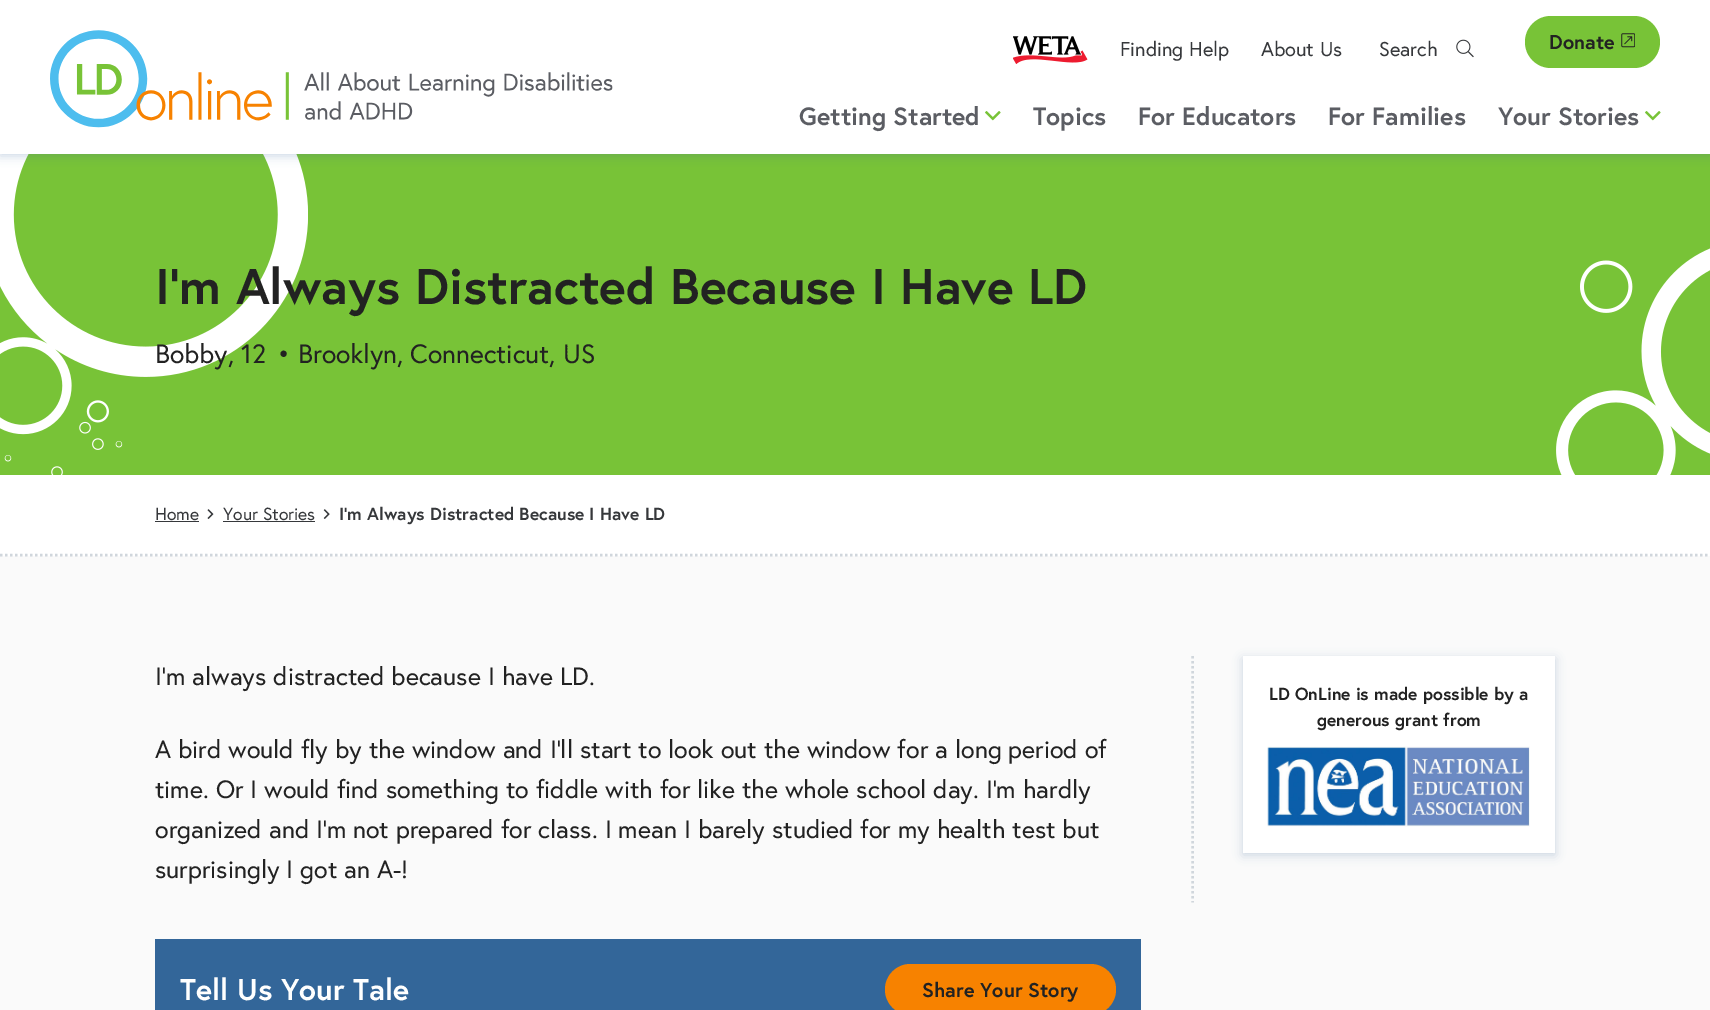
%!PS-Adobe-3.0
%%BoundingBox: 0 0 1710 1010
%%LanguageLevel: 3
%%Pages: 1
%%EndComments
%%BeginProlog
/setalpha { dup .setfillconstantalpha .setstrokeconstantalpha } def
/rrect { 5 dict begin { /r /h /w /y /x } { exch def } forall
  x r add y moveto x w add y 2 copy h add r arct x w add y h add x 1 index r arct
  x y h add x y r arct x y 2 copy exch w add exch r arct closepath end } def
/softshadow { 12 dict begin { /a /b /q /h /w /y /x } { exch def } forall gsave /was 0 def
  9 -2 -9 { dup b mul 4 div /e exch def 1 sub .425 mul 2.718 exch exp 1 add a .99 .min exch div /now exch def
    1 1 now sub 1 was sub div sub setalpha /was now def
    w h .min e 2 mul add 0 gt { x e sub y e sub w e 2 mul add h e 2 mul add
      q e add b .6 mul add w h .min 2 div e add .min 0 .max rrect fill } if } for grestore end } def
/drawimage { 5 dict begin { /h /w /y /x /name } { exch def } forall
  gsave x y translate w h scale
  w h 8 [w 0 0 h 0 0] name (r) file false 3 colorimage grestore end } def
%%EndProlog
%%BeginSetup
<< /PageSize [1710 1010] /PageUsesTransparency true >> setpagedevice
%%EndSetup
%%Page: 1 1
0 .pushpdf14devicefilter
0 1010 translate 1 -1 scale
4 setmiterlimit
0.98 setgray
0 0 1710 1010 rectfill
0.471 0.765 0.216 setrgbcolor
0 154 1710 321 rectfill
(images/6.raw) 0 154 308 321 drawimage
0.216 0.4 0.6 setrgbcolor
0 3 1710 153 0 5 0.25 softshadow
1 setgray
0 0 1710 154 rectfill
(images/1.raw) 50 30 563 98 drawimage
(images/2.raw) 1013 36 75 28 drawimage
(images/3.raw) 1456 39 18 19 drawimage
0.471 0.765 0.216 setrgbcolor
1525 16 135 52 26 rrect fill
(images/4.raw) 1621 33 14 15 drawimage
(images/5.raw) 985 111 16 10 drawimage
(images/5.raw) 1645 111 16 10 drawimage
(images/7.raw) 1556 248 154 227 drawimage
1 setgray
0 475 1710 81 rectfill
0.816 0.839 0.863 setrgbcolor
2.5 setlinewidth
[2.5 2.5] 0 setdash
newpath 0 555 moveto 1710 555 lineto stroke
0.212 0.22 0.231 setrgbcolor
155 521 44 1 rectfill
(images/8.raw) 207 509 7 10 drawimage
223 521 92 1 rectfill
(images/9.raw) 323 509 7 10 drawimage
0.2 0.4 0.6 setrgbcolor
155 939 986 71 rectfill
0.969 0.51 0 setrgbcolor
885 964 231 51 25.5 rrect fill
0.816 0.839 0.863 setrgbcolor
newpath 1192.5 656 moveto 1192.5 902.5 lineto stroke
0.216 0.4 0.6 setrgbcolor
1243 659 312 196 0 5 0.25 softshadow
1 setgray
1243 656 312 197 rectfill
(images/10.raw) 1267 746 263 81 drawimage
/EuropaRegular-Regular [20 0 0 -20 0 0] selectfont
0.212 0.22 0.231 setrgbcolor
1120 56 moveto (Finding Help) show
1261 56 moveto (About Us) show
1379 56 moveto (Search) show
/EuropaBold-Bold [20 0 0 -20 0 0] selectfont
0.133 setgray
1549 49 moveto (Donate) show
/EuropaBold-Bold [25 0 0 -25 0 0] selectfont
0.357 0.365 0.388 setrgbcolor
799 125 moveto (Getting Started) show
1033 125 moveto (Topics) show
1138 125 moveto (For Educators) show
1328 125 moveto (For Families) show
1498 125 moveto (Your Stories) show
/EuropaBold-Bold [50 0 0 -50 0 0] selectfont
0.133 setgray
155 304 moveto (I’m Always Distracted Because I Have LD) show
/EuropaRegular-Regular [26.5 0 0 -26.5 0 0] selectfont
155 363 moveto (Bobby, 12) show
277 363 moveto (• Brooklyn, Connecticut, US) show
/EuropaRegular-Regular [17.5 0 0 -17.5 0 0] selectfont
0.212 0.22 0.231 setrgbcolor
155 520 moveto (Home) show
223 520 moveto (Your Stories) show
/EuropaBold-Bold [17.5 0 0 -17.5 0 0] selectfont
339 520 moveto (I'm Always Distracted Because I Have LD) show
/EuropaRegular-Regular [25 0 0 -25 0 0] selectfont
0.133 setgray
155 685 moveto (I’m always distracted because I have LD.) show
155 758 moveto (A bird would fly by the window and I’ll start to look out the window for a long period of) show
155 798 moveto (time. Or I would find something to fiddle with for like the whole school day. I’m hardly) show
155 838 moveto (organized and I’m not prepared for class. I mean I barely studied for my health test but) show
155 878 moveto (surprisingly I got an A-!) show
/EuropaBold-Bold [30 0 0 -30 0 0] selectfont
1 setgray
180 1000 moveto (Tell Us Your Tale) show
/EuropaBold-Bold [20 0 0 -20 0 0] selectfont
0.133 setgray
922 997 moveto (Share Your Story) show
/EuropaBold-Bold [17.5 0 0 -17.5 0 0] selectfont
1269 700 moveto (LD OnLine is made possible by a) show
1317 726 moveto (generous grant from) show
.poppdf14devicefilter showpage
%%EOF
